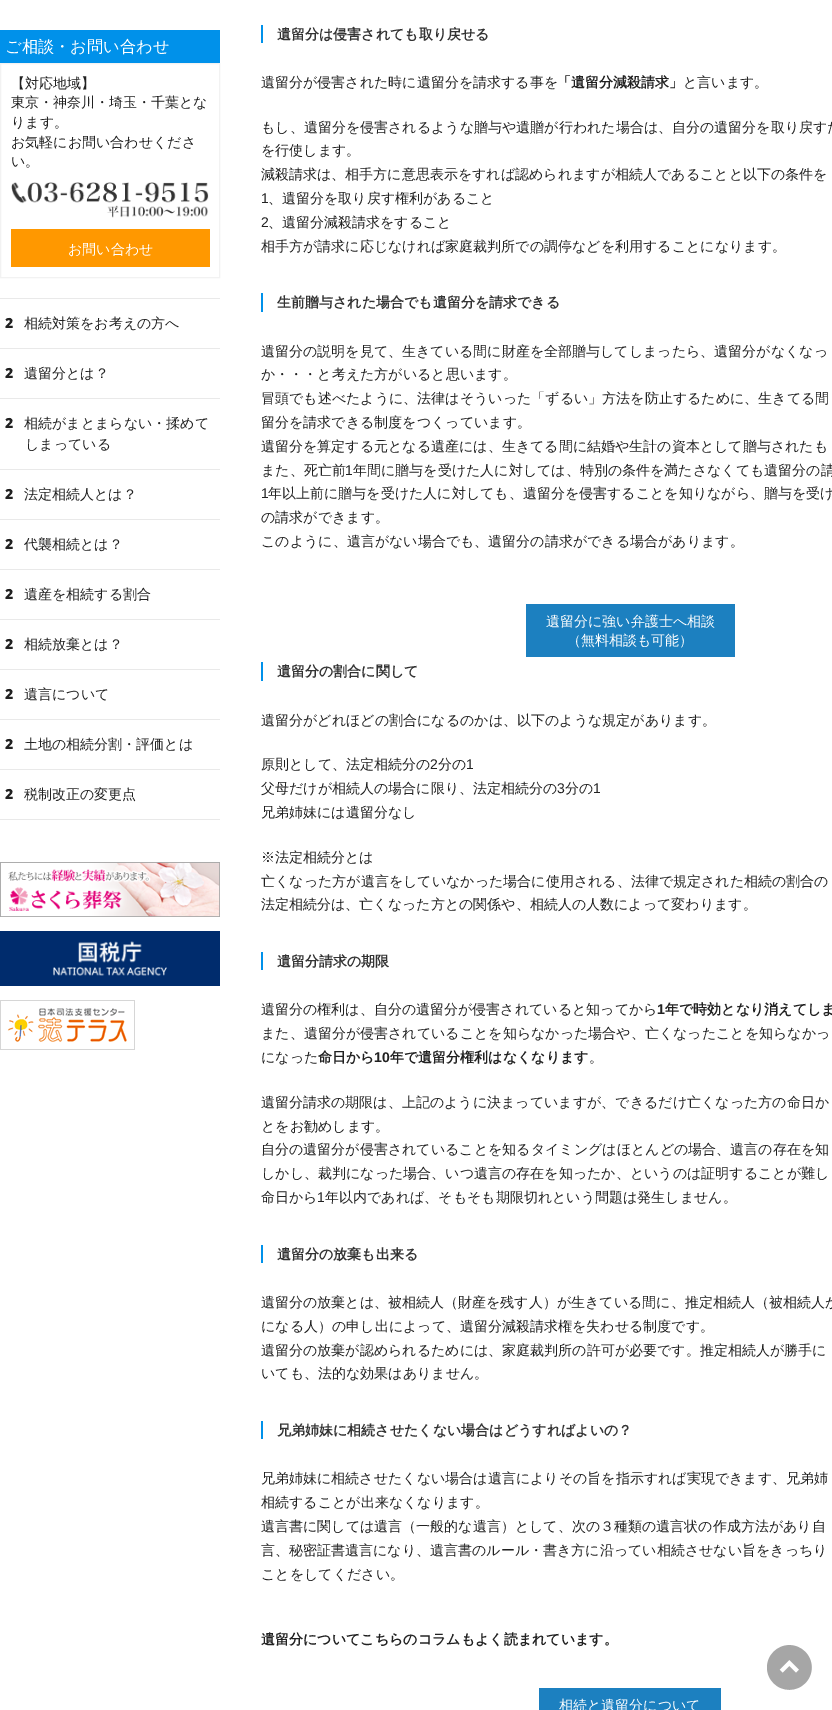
%!PS-Adobe-3.0
%%BoundingBox: 0 0 832 1710
%%LanguageLevel: 3
%%Pages: 1
%%EndComments
%%BeginProlog
/drawimage { 5 dict begin { /h /w /y /x /name } { exch def } forall
  gsave x y translate w h scale
  w h 8 [w 0 0 h 0 0] name (r) file false 3 colorimage grestore end } def
%%EndProlog
%%BeginSetup
<< /PageSize [832 1710] >> setpagedevice
%%EndSetup
%%Page: 1 1
0 1710 translate 1 -1 scale
4 setmiterlimit
1 setgray
0 0 832 1710 rectfill
0 0.569 0.918 setrgbcolor
0 30 220 33 rectfill
0.949 setgray
0.5 63.5 219 214 rectstroke
(images/1.raw) 11 182 198 36 drawimage
1 0.596 0 setrgbcolor
11 229 199 38 rectfill
0.914 setgray
0 298 220 1 rectfill
0 348 220 1 rectfill
0 398 220 1 rectfill
0 469 220 1 rectfill
0 519 220 1 rectfill
0 569 220 1 rectfill
0 619 220 1 rectfill
0 669 220 1 rectfill
0 719 220 1 rectfill
0 769 220 1 rectfill
0 819 220 1 rectfill
(images/2.raw) 0 862 220 55 drawimage
(images/3.raw) 0 931 220 55 drawimage
(images/4.raw) 0 1000 135 50 drawimage
0 0.569 0.918 setrgbcolor
261 25 2 18 rectfill
261 293 2 19 rectfill
0.11 0.502 0.753 setrgbcolor
526 604 209 53 rectfill
0 0.569 0.918 setrgbcolor
261 662 2 19 rectfill
261 952 2 18 rectfill
261 1245 2 18 rectfill
261 1421 2 18 rectfill
0.11 0.502 0.753 setrgbcolor
539 1688 182 22 rectfill
(images/5.raw) 767 1645 45 45 drawimage
/WenQuanYiZenHei-Medium [16.25 0 0 -16.25 0 0] selectfont
1 setgray
5 52 moveto (ご相談・お問い合わせ) show
/WenQuanYiZenHei-Medium [14 0 0 -14 0 0] selectfont
0.129 setgray
11 88 moveto (【対応地域】) show
11 107 moveto (東京・神奈川・埼玉・千葉とな) show
11 127 moveto (ります。) show
11 147 moveto (お気軽にお問い合わせくださ) show
11 166 moveto (い。) show
1 setgray
68 254 moveto (お問い合わせ) show
/NotoSans-Black [14 0 0 -14 0 0] selectfont
0.129 setgray
5 328 moveto (2) show
/WenQuanYiZenHei-Medium [14 0 0 -14 0 0] selectfont
24 328 moveto (相続対策をお考えの方へ) show
/NotoSans-Black [14 0 0 -14 0 0] selectfont
5 378 moveto (2) show
/WenQuanYiZenHei-Medium [14 0 0 -14 0 0] selectfont
24 378 moveto (遺留分とは？) show
/NotoSans-Black [14 0 0 -14 0 0] selectfont
5 428 moveto (2) show
/WenQuanYiZenHei-Medium [14 0 0 -14 0 0] selectfont
24 428 moveto (相続がまとまらない・揉めて) show
25 449 moveto (しまっている) show
/NotoSans-Black [14 0 0 -14 0 0] selectfont
5 499 moveto (2) show
/WenQuanYiZenHei-Medium [14 0 0 -14 0 0] selectfont
24 499 moveto (法定相続人とは？) show
/NotoSans-Black [14 0 0 -14 0 0] selectfont
5 549 moveto (2) show
/WenQuanYiZenHei-Medium [14 0 0 -14 0 0] selectfont
24 549 moveto (代襲相続とは？) show
/NotoSans-Black [14 0 0 -14 0 0] selectfont
5 599 moveto (2) show
/WenQuanYiZenHei-Medium [14 0 0 -14 0 0] selectfont
24 599 moveto (遺産を相続する割合) show
/NotoSans-Black [14 0 0 -14 0 0] selectfont
5 649 moveto (2) show
/WenQuanYiZenHei-Medium [14 0 0 -14 0 0] selectfont
24 649 moveto (相続放棄とは？) show
/NotoSans-Black [14 0 0 -14 0 0] selectfont
5 699 moveto (2) show
/WenQuanYiZenHei-Medium [14 0 0 -14 0 0] selectfont
24 699 moveto (遺言について) show
/NotoSans-Black [14 0 0 -14 0 0] selectfont
5 749 moveto (2) show
/WenQuanYiZenHei-Medium [14 0 0 -14 0 0] selectfont
24 749 moveto (土地の相続分割・評価とは) show
/NotoSans-Black [14 0 0 -14 0 0] selectfont
5 799 moveto (2) show
/WenQuanYiZenHei-Medium [14 0 0 -14 0 0] selectfont
24 799 moveto (税制改正の変更点) show
/WenQuanYiZenHei-Bold [14 0 0 -14 0 0] selectfont
0.2 setgray
277 39 moveto (遺留分は侵害されても取り戻せる) show
/WenQuanYiZenHei-Medium [14 0 0 -14 0 0] selectfont
0.129 setgray
261 87 moveto (遺留分が侵害された時に遺留分を請求する事を) show
/WenQuanYiZenHei-Bold [14 0 0 -14 0 0] selectfont
557 87 moveto (「遺留分減殺請求」) show
/WenQuanYiZenHei-Medium [14 0 0 -14 0 0] selectfont
683 87 moveto (と言います。) show
261 132 moveto (もし、遺留分を侵害されるような贈与や遺贈が行われた場合は、自分の遺留分を取り戻すた) show
261 155 moveto (を行使します。) show
261 179 moveto (減殺請求は、相手方に意思表示をすれば認められますが相続人であることと以下の条件を) show
/LiberationSans-Regular [14 0 0 -14 0 0] selectfont
261 203 moveto (1) show
/WenQuanYiZenHei-Medium [14 0 0 -14 0 0] selectfont
268 203 moveto (、遺留分を取り戻す権利があること) show
/LiberationSans-Regular [14 0 0 -14 0 0] selectfont
261 227 moveto (2) show
/WenQuanYiZenHei-Medium [14 0 0 -14 0 0] selectfont
268 227 moveto (、遺留分減殺請求をすること) show
261 251 moveto (相手方が請求に応じなければ家庭裁判所での調停などを利用することになります。) show
/WenQuanYiZenHei-Bold [14 0 0 -14 0 0] selectfont
0.2 setgray
277 307 moveto (生前贈与された場合でも遺留分を請求できる) show
/WenQuanYiZenHei-Medium [14 0 0 -14 0 0] selectfont
0.129 setgray
261 356 moveto (遺留分の説明を見て、生きている間に財産を全部贈与してしまったら、遺留分がなくなっ) show
261 379 moveto (か・・・と考えた方がいると思います。) show
261 403 moveto (冒頭でも述べたように、法律はそういった「ずるい」方法を防止するために、生きてる間) show
261 427 moveto (留分を請求できる制度をつくっています。) show
261 451 moveto (遺留分を算定する元となる遺産には、生きてる間に結婚や生計の資本として贈与されたも) show
261 475 moveto (また、死亡前) show
/LiberationSans-Regular [14 0 0 -14 0 0] selectfont
345 475 moveto (1) show
/WenQuanYiZenHei-Medium [14 0 0 -14 0 0] selectfont
353 475 moveto (年間に贈与を受けた人に対しては、特別の条件を満たさなくても遺留分の請) show
/LiberationSans-Regular [14 0 0 -14 0 0] selectfont
261 498 moveto (1) show
/WenQuanYiZenHei-Medium [14 0 0 -14 0 0] selectfont
268 498 moveto (年以上前に贈与を受けた人に対しても、遺留分を侵害することを知りながら、贈与を受け) show
261 522 moveto (の請求ができます。) show
261 546 moveto (このように、遺言がない場合でも、遺留分の請求ができる場合があります。) show
1 setgray
546 626 moveto (遺留分に強い弁護士へ相談) show
567 645 moveto (（無料相談も可能）) show
/WenQuanYiZenHei-Bold [14 0 0 -14 0 0] selectfont
0.2 setgray
277 676 moveto (遺留分の割合に関して) show
/WenQuanYiZenHei-Medium [14 0 0 -14 0 0] selectfont
0.129 setgray
261 725 moveto (遺留分がどれほどの割合になるのかは、以下のような規定があります。) show
261 769 moveto (原則として、法定相続分の) show
/LiberationSans-Regular [14 0 0 -14 0 0] selectfont
430 769 moveto (2) show
/WenQuanYiZenHei-Medium [14 0 0 -14 0 0] selectfont
438 769 moveto (分の) show
/LiberationSans-Regular [14 0 0 -14 0 0] selectfont
466 769 moveto (1) show
/WenQuanYiZenHei-Medium [14 0 0 -14 0 0] selectfont
261 793 moveto (父母だけが相続人の場合に限り、法定相続分の) show
/LiberationSans-Regular [14 0 0 -14 0 0] selectfont
557 793 moveto (3) show
/WenQuanYiZenHei-Medium [14 0 0 -14 0 0] selectfont
565 793 moveto (分の) show
/LiberationSans-Regular [14 0 0 -14 0 0] selectfont
593 793 moveto (1) show
/WenQuanYiZenHei-Medium [14 0 0 -14 0 0] selectfont
261 817 moveto (兄弟姉妹には遺留分なし) show
261 862 moveto (※法定相続分とは) show
261 886 moveto (亡くなった方が遺言をしていなかった場合に使用される、法律で規定された相続の割合の) show
261 909 moveto (法定相続分は、亡くなった方との関係や、相続人の人数によって変わります。) show
/WenQuanYiZenHei-Bold [14 0 0 -14 0 0] selectfont
0.2 setgray
277 966 moveto (遺留分請求の期限) show
/WenQuanYiZenHei-Medium [14 0 0 -14 0 0] selectfont
0.129 setgray
261 1014 moveto (遺留分の権利は、自分の遺留分が侵害されていると知ってから) show
/LiberationSans-Bold [14 0 0 -14 0 0] selectfont
657 1014 moveto (1) show
/WenQuanYiZenHei-Bold [14 0 0 -14 0 0] selectfont
665 1014 moveto (年で時効となり消えてしま) show
/WenQuanYiZenHei-Medium [14 0 0 -14 0 0] selectfont
261 1038 moveto (また、遺留分が侵害されていることを知らなかった場合や、亡くなったことを知らなかっ) show
261 1062 moveto (になった) show
/WenQuanYiZenHei-Bold [14 0 0 -14 0 0] selectfont
318 1062 moveto (命日から) show
/LiberationSans-Bold [14 0 0 -14 0 0] selectfont
374 1062 moveto (10) show
/WenQuanYiZenHei-Bold [14 0 0 -14 0 0] selectfont
390 1062 moveto (年で遺留分権利はなくなります) show
/WenQuanYiZenHei-Medium [14 0 0 -14 0 0] selectfont
589 1062 moveto (。) show
261 1107 moveto (遺留分請求の期限は、上記のように決まっていますが、できるだけ亡くなった方の命日か) show
261 1131 moveto (とをお勧めします。) show
261 1154 moveto (自分の遺留分が侵害されていることを知るタイミングはほとんどの場合、遺言の存在を知) show
261 1178 moveto (しかし、裁判になった場合、いつ遺言の存在を知ったか、というのは証明することが難し) show
261 1202 moveto (命日から) show
/LiberationSans-Regular [14 0 0 -14 0 0] selectfont
317 1202 moveto (1) show
/WenQuanYiZenHei-Medium [14 0 0 -14 0 0] selectfont
325 1202 moveto (年以内であれば、そもそも期限切れという問題は発生しません。) show
/WenQuanYiZenHei-Bold [14 0 0 -14 0 0] selectfont
0.2 setgray
277 1259 moveto (遺留分の放棄も出来る) show
/WenQuanYiZenHei-Medium [14 0 0 -14 0 0] selectfont
0.129 setgray
261 1307 moveto (遺留分の放棄とは、被相続人（財産を残す人）が生きている間に、推定相続人（被相続人が) show
261 1331 moveto (になる人）の申し出によって、遺留分減殺請求権を失わせる制度です。) show
261 1355 moveto (遺留分の放棄が認められるためには、家庭裁判所の許可が必要です。推定相続人が勝手に) show
261 1378 moveto (いても、法的な効果はありません。) show
/WenQuanYiZenHei-Bold [14 0 0 -14 0 0] selectfont
0.2 setgray
277 1435 moveto (兄弟姉妹に相続させたくない場合はどうすればよいの？) show
/WenQuanYiZenHei-Medium [14 0 0 -14 0 0] selectfont
0.129 setgray
261 1483 moveto (兄弟姉妹に相続させたくない場合は遺言によりその旨を指示すれば実現できます、兄弟姉) show
261 1507 moveto (相続することが出来なくなります。) show
261 1531 moveto (遺言書に関しては遺言（一般的な遺言）として、次の３種類の遺言状の作成方法があり自) show
261 1555 moveto (言、秘密証書遺言になり、遺言書のルール・書き方に沿ってい相続させない旨をきっちり) show
261 1579 moveto (ことをしてください。) show
/WenQuanYiZenHei-Bold [14 0 0 -14 0 0] selectfont
261 1644 moveto (遺留分についてこちらのコラムもよく読まれています。) show
/WenQuanYiZenHei-Medium [14 0 0 -14 0 0] selectfont
1 setgray
559 1710 moveto (相続と遺留分について) show
showpage
%%EOF
